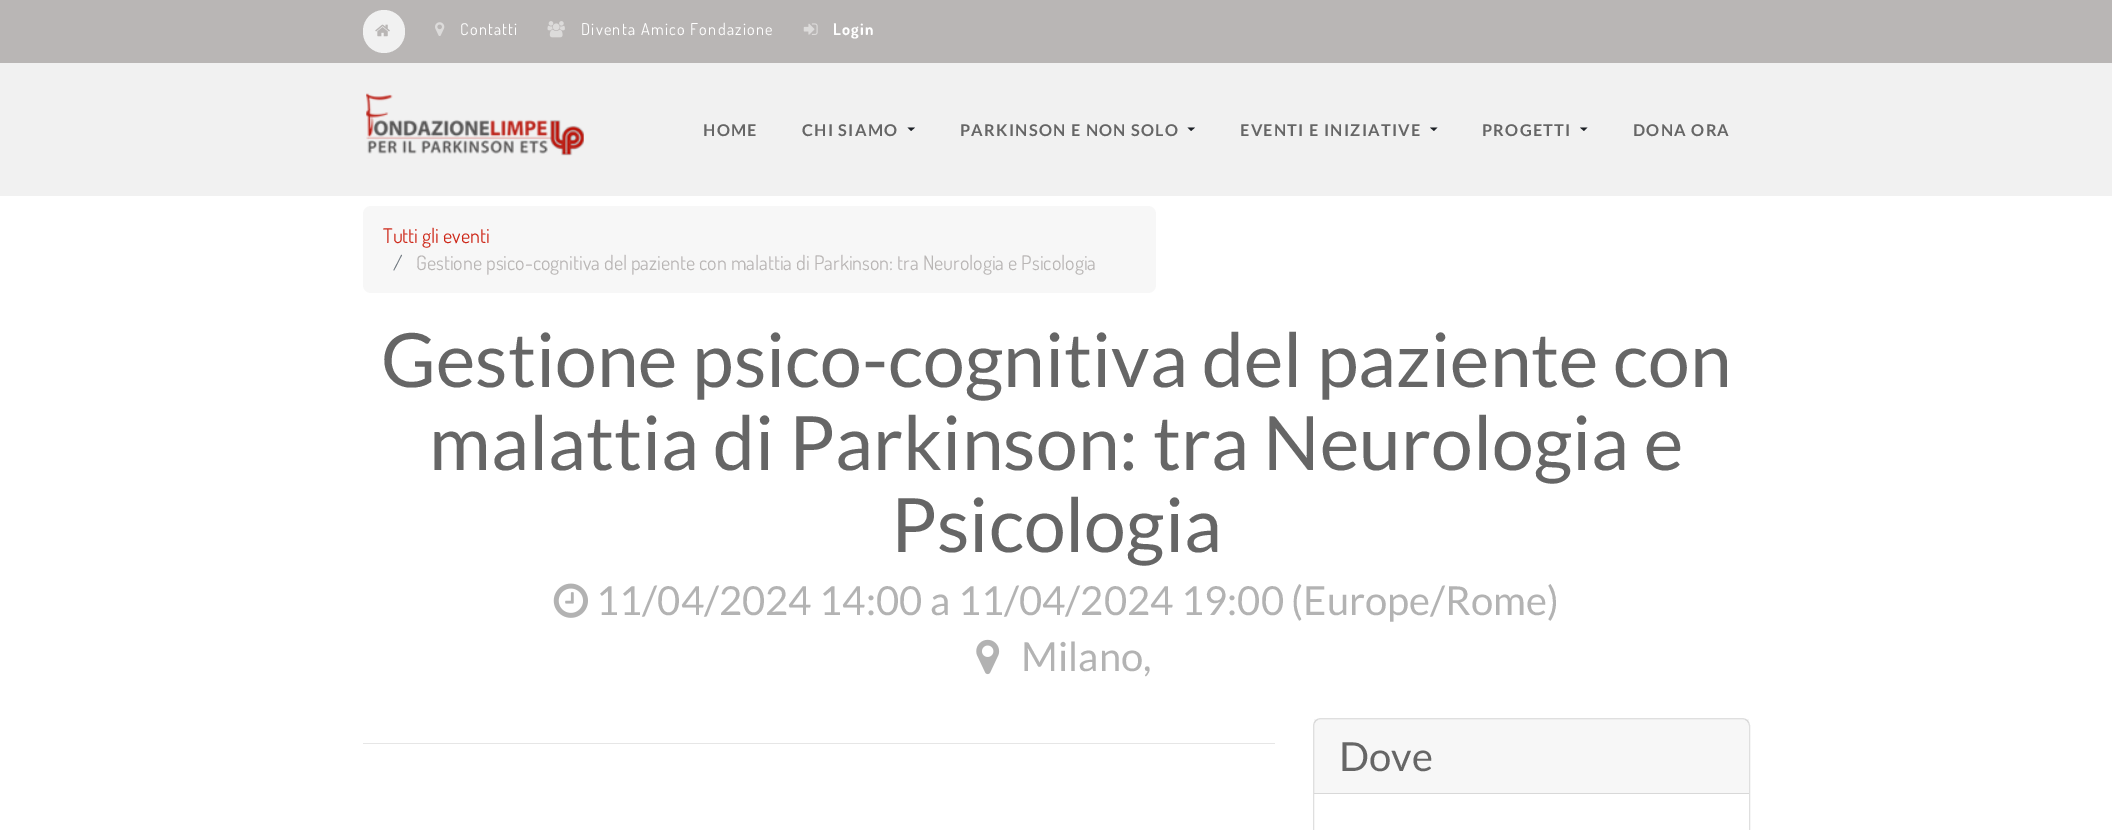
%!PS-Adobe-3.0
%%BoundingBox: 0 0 2112 830
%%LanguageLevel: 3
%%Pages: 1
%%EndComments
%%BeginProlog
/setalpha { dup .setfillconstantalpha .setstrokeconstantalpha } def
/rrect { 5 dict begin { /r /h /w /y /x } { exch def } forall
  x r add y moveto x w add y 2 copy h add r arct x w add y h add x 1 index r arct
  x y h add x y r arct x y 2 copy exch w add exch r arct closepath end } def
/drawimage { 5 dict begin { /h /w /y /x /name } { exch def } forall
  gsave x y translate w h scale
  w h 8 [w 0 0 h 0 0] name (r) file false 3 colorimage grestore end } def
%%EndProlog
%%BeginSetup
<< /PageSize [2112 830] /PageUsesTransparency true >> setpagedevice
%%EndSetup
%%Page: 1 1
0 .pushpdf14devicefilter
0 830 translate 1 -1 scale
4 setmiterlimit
1 setgray
0 0 2112 830 rectfill
0.725 0.714 0.71 setrgbcolor
0 0 2112 63 rectfill
0.945 setgray
363 10 42 43 21 rrect fill
(images/1.raw) 375 24 15 13 drawimage
(images/2.raw) 435 22 10 14 drawimage
(images/3.raw) 547 21 18 17 drawimage
(images/4.raw) 803 23 15 12 drawimage
0 63 2112 133 rectfill
(images/5.raw) 366 93 218 63 drawimage
0.114 0.129 0.153 setrgbcolor
newpath 907.5 127.5 moveto 915 127.5 lineto 911 131 lineto closepath fill
newpath 1187.5 127.5 moveto 1195 127.5 lineto 1191 131 lineto closepath fill
newpath 1430 127.5 moveto 1437.5 127.5 lineto 1434 131 lineto closepath fill
newpath 1580 127.5 moveto 1587.5 127.5 lineto 1584 131 lineto closepath fill
0.969 setgray
363 206 793 87 8 rrect fill
(images/6.raw) 553 583 35 35 drawimage
(images/7.raw) 976 639 24 36 drawimage
0.902 setgray
363 743 912 1 rectfill
0.875 setgray
1313.5 718.5 436 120 7.5 rrect stroke
0.03 setalpha
0 setgray
1314 719 435 74 rectfill
1 setalpha
0.847 setgray
1314 793 435 1 rectfill
/Dosis-Regular [16.25 0 0 -16.25 0 0] selectfont
1 setgray
460 35 moveto 1.25 0 (Contatti) ashow
581 35 moveto 1.25 0 (Diventa Amico Fondazione) ashow
/Dosis-Bold [16.25 0 0 -16.25 0 0] selectfont
833 35 moveto 1.25 0 (Login) ashow
/Lato-Bold [16.25 0 0 -16.25 0 0] selectfont
0.4 setgray
703 136 moveto 1.25 0 (HOME) ashow
802 136 moveto 1.25 0 (CHI SIAMO) ashow
960 136 moveto 1.25 0 (PARKINSON E NON SOLO) ashow
1240 136 moveto 1.25 0 (EVENTI E INIZIATIVE) ashow
1482 136 moveto 1.25 0 (PROGETTI) ashow
1633 136 moveto 1.25 0 (DONA ORA) ashow
/Dosis-Regular [20 0 0 -20 0 0] selectfont
0.804 0.153 0.094 setrgbcolor
383 243 moveto (Tutti gli eventi) show
0.424 0.459 0.49 setrgbcolor
393 270 moveto (/) show
0.725 0.714 0.71 setrgbcolor
416 270 moveto (Gestione psico-cognitiva del paziente con malattia di Parkinson: tra Neurologia e Psicologia) show
/Lato-Regular [75 0 0 -75 0 0] selectfont
0.4 setgray
381 387 moveto (Gestione psico-cognitiva del paziente con) show
429 470 moveto (malattia di Parkinson: tra Neurologia e) show
891 552 moveto (Psicologia) show
/Lato-Regular [40 0 0 -40 0 0] selectfont
0.702 setgray
596 615 moveto (11/04/2024 14:00 a 11/04/2024 19:00 \(Europe/Rome\)) show
1021 671 moveto (Milano,) show
0.4 setgray
1339 771 moveto (Dove) show
.poppdf14devicefilter showpage
%%EOF
